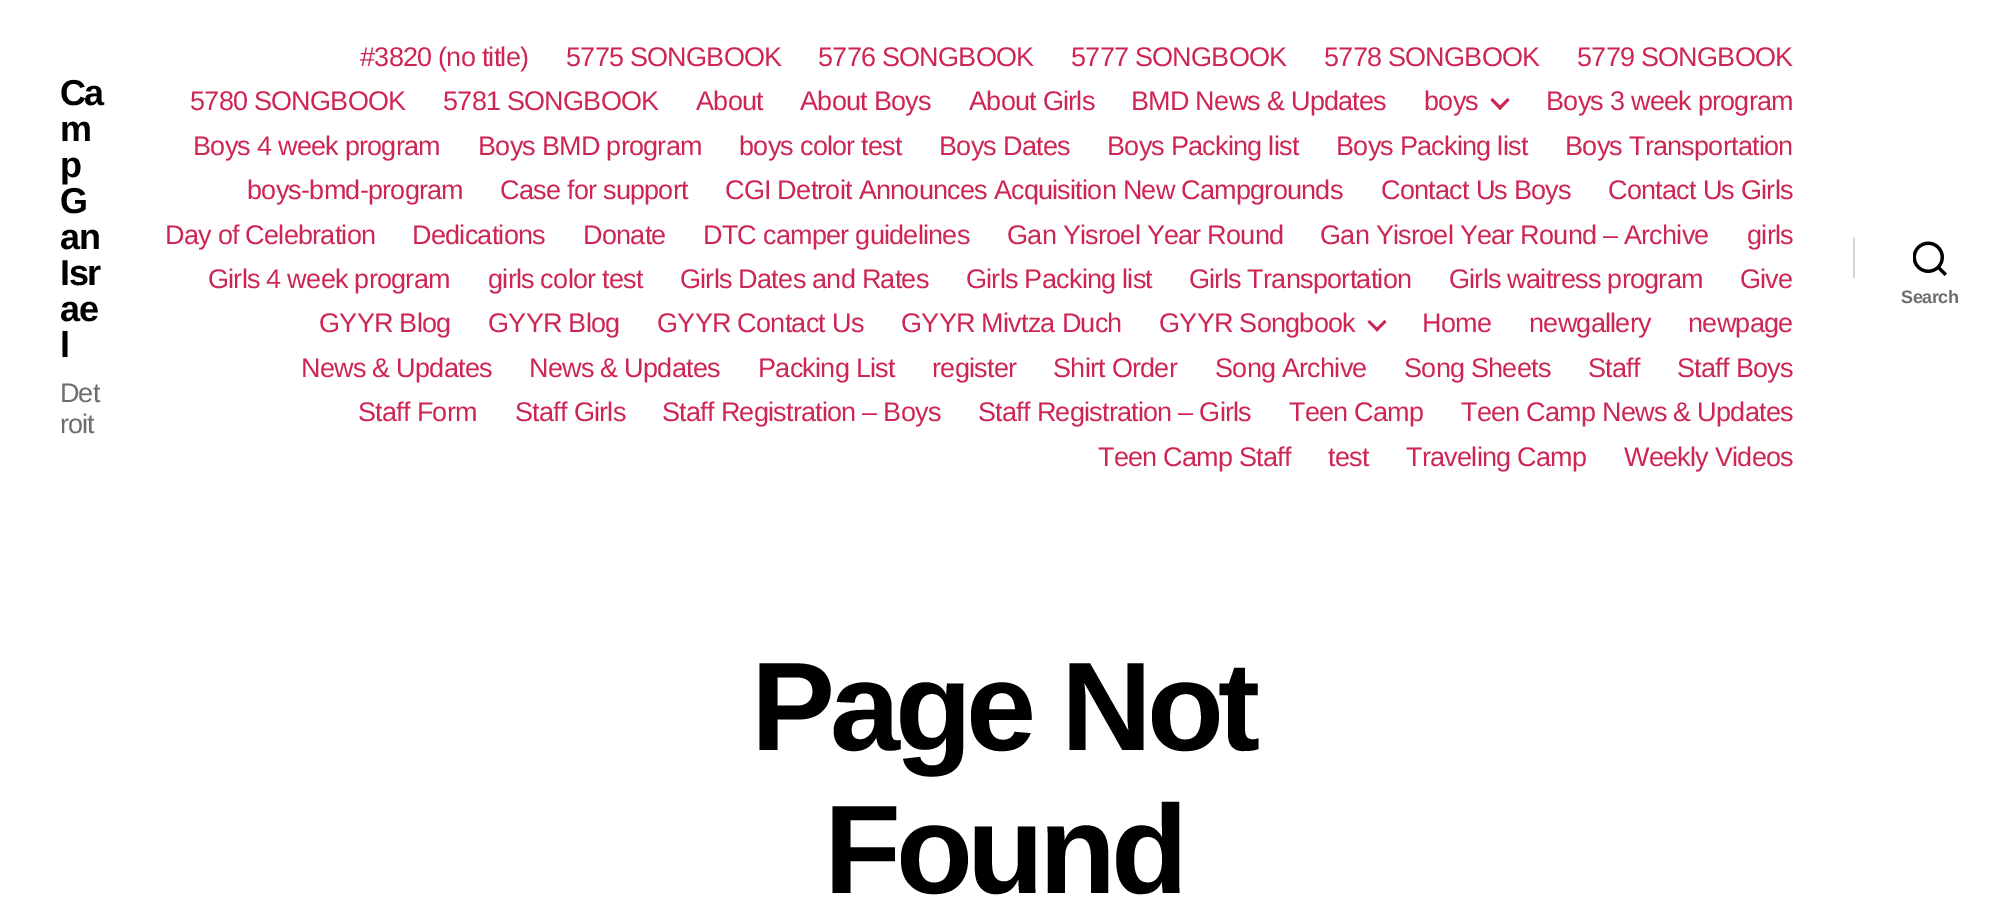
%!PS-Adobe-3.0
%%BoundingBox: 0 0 2007 899
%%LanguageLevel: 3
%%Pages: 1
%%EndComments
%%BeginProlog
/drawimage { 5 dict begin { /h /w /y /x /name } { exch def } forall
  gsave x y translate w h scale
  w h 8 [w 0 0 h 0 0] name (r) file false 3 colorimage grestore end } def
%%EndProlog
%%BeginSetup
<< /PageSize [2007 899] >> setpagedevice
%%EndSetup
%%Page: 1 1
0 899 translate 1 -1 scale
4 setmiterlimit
1 setgray
0 0 2007 899 rectfill
0.804 0.149 0.325 setrgbcolor
newpath 1490.5 100 moveto 1492.5 98 lineto 1502 107.5 lineto 1500 110 lineto closepath fill
newpath 1498 107.5 moveto 1507.5 98 lineto 1509.5 100 lineto 1500 110 lineto closepath fill
newpath 1367.5 322 moveto 1369.5 320 lineto 1379 329.5 lineto 1377 331.5 lineto closepath fill
newpath 1375 329.5 moveto 1384.5 320 lineto 1386.5 322 lineto 1377 331.5 lineto closepath fill
0.863 0.843 0.792 setrgbcolor
1853 237 2 41 rectfill
(images/1.raw) 1913 241 34 35 drawimage
/LiberationSans-Bold [36 0 0 -36 0 0] selectfont
0 setgray
60 105 moveto -1.5 0 (Ca) ashow
60 141 moveto -1.5 0 (m) ashow
60 177 moveto -1.5 0 (p) ashow
60 213 moveto -1.5 0 (G) ashow
60 249 moveto -1.5 0 (an) ashow
60 285 moveto -1.5 0 (Isr) ashow
60 321 moveto -1.5 0 (ae) ashow
60 357 moveto -1.5 0 (l) ashow
/LiberationSans-Regular [27 0 0 -27 0 0] selectfont
0.427 setgray
60 402 moveto -1 0 (Det) ashow
60 433 moveto -1 0 (roit) ashow
0.804 0.149 0.325 setrgbcolor
360 66 moveto -0.75 0 (#3820 \(no title\)) ashow
566 66 moveto -0.75 0 (5775 SONGBOOK) ashow
818 66 moveto -0.75 0 (5776 SONGBOOK) ashow
1071 66 moveto -0.75 0 (5777 SONGBOOK) ashow
1324 66 moveto -0.75 0 (5778 SONGBOOK) ashow
1577 66 moveto -0.75 0 (5779 SONGBOOK) ashow
190 110 moveto -0.75 0 (5780 SONGBOOK) ashow
443 110 moveto -0.75 0 (5781 SONGBOOK) ashow
696 110 moveto -0.75 0 (About) ashow
800 110 moveto -0.75 0 (About Boys) ashow
969 110 moveto -0.75 0 (About Girls) ashow
1131 110 moveto -0.75 0 (BMD News & Updates) ashow
1424 110 moveto -0.75 0 (boys) ashow
1546 110 moveto -0.75 0 (Boys 3 week program) ashow
193 155 moveto -0.75 0 (Boys 4 week program) ashow
478 155 moveto -0.75 0 (Boys BMD program) ashow
739 155 moveto -0.75 0 (boys color test) ashow
939 155 moveto -0.75 0 (Boys Dates) ashow
1107 155 moveto -0.75 0 (Boys Packing list) ashow
1336 155 moveto -0.75 0 (Boys Packing list) ashow
1565 155 moveto -0.75 0 (Boys Transportation) ashow
247 199 moveto -0.75 0 (boys-bmd-program) ashow
500 199 moveto -0.75 0 (Case for support) ashow
725 199 moveto -0.75 0 (CGI Detroit Announces Acquisition New Campgrounds) ashow
1381 199 moveto -0.75 0 (Contact Us Boys) ashow
1608 199 moveto -0.75 0 (Contact Us Girls) ashow
165 244 moveto -0.75 0 (Day of Celebration) ashow
412 244 moveto -0.75 0 (Dedications) ashow
583 244 moveto -0.75 0 (Donate) ashow
703 244 moveto -0.75 0 (DTC camper guidelines) ashow
1007 244 moveto -0.75 0 (Gan Yisroel Year Round) ashow
1320 244 moveto -0.75 0 (Gan Yisroel Year Round – Archive) ashow
1747 244 moveto -0.75 0 (girls) ashow
208 288 moveto -0.75 0 (Girls 4 week program) ashow
488 288 moveto -0.75 0 (girls color test) ashow
680 288 moveto -0.75 0 (Girls Dates and Rates) ashow
966 288 moveto -0.75 0 (Girls Packing list) ashow
1189 288 moveto -0.75 0 (Girls Transportation) ashow
1449 288 moveto -0.75 0 (Girls waitress program) ashow
1740 288 moveto -0.75 0 (Give) ashow
319 332 moveto -0.75 0 (GYYR Blog) ashow
488 332 moveto -0.75 0 (GYYR Blog) ashow
657 332 moveto -0.75 0 (GYYR Contact Us) ashow
901 332 moveto -0.75 0 (GYYR Mivtza Duch) ashow
1159 332 moveto -0.75 0 (GYYR Songbook) ashow
1422 332 moveto -0.75 0 (Home) ashow
1529 332 moveto -0.75 0 (newgallery) ashow
1688 332 moveto -0.75 0 (newpage) ashow
301 377 moveto -0.75 0 (News & Updates) ashow
529 377 moveto -0.75 0 (News & Updates) ashow
758 377 moveto -0.75 0 (Packing List) ashow
932 377 moveto -0.75 0 (register) ashow
1053 377 moveto -0.75 0 (Shirt Order) ashow
1215 377 moveto -0.75 0 (Song Archive) ashow
1404 377 moveto -0.75 0 (Song Sheets) ashow
1588 377 moveto -0.75 0 (Staff) ashow
1677 377 moveto -0.75 0 (Staff Boys) ashow
358 421 moveto -0.75 0 (Staff Form) ashow
515 421 moveto -0.75 0 (Staff Girls) ashow
662 421 moveto -0.75 0 (Staff Registration – Boys) ashow
978 421 moveto -0.75 0 (Staff Registration – Girls) ashow
1289 421 moveto -0.75 0 (Teen Camp) ashow
1461 421 moveto -0.75 0 (Teen Camp News & Updates) ashow
1098 466 moveto -0.75 0 (Teen Camp Staff) ashow
1328 466 moveto -0.75 0 (test) ashow
1406 466 moveto -0.75 0 (Traveling Camp) ashow
1624 466 moveto -0.75 0 (Weekly Videos) ashow
/LiberationSans-Bold [18 0 0 -18 0 0] selectfont
0.427 setgray
1901 303 moveto -0.5 0 (Search) ashow
/LiberationSans-Bold [126 0 0 -126 0 0] selectfont
0 setgray
751 750 moveto -5.25 0 (Page Not) ashow
824 893 moveto -5.25 0 (Found) ashow
showpage
%%EOF
